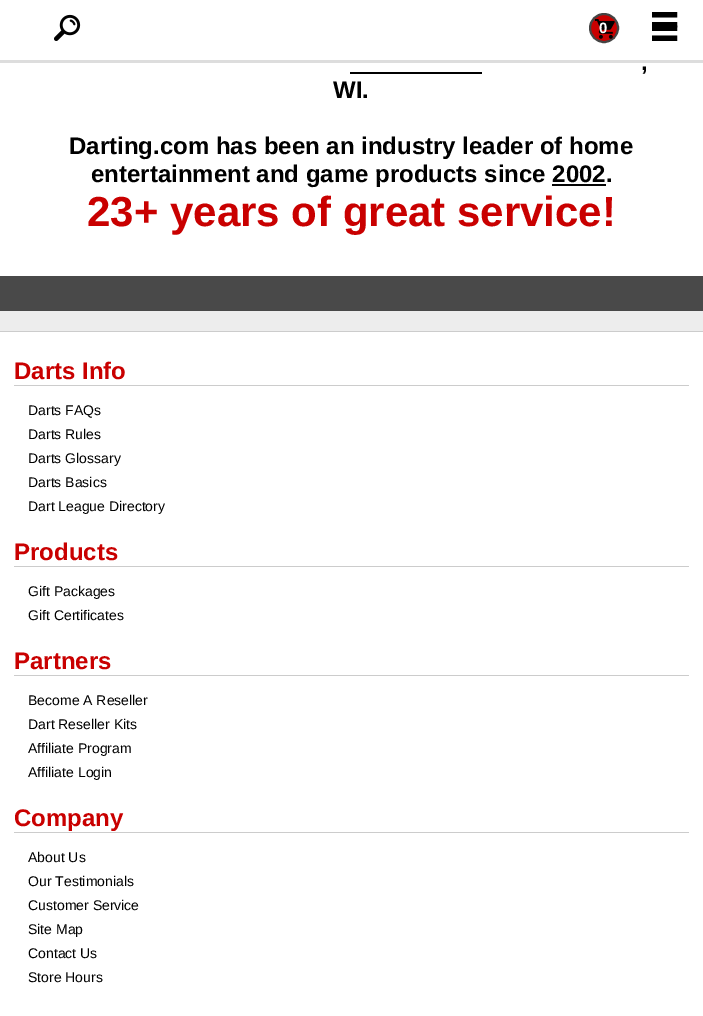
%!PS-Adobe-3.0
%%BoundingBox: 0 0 703 1016
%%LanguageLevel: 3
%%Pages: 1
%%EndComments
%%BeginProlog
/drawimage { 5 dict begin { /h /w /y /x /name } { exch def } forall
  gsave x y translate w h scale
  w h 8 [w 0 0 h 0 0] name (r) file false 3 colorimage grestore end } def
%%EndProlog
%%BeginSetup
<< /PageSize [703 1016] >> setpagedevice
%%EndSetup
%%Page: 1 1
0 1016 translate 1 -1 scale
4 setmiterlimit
0.929 setgray
0 0 703 1016 rectfill
1 setgray
0 0 703 60 rectfill
0.867 setgray
0 60 703 3 rectfill
(images/1.raw) 54 14 27 27 drawimage
0.788 0 0 setrgbcolor
newpath 604 28 14 0 360 arc closepath gsave fill grestore
0.267 setgray
2 setlinewidth
stroke
(images/2.raw) 595 19 20 20 drawimage
0.286 setgray
0 276 703 35 rectfill
1 setgray
0 63 703 213 rectfill
0 setgray
350 72 132 2 rectfill
1 setgray
0 332 703 684 rectfill
0.8 setgray
0 331 703 1 rectfill
14 385 675 1 rectfill
14 566 675 1 rectfill
14 675 675 1 rectfill
14 832 675 1 rectfill
/LiberationSans-Bold [15 0 0 -15 0 0] selectfont
1 setgray
599 33 moveto (0) show
/LiberationSans-Bold [50 0 0 -50 0 0] selectfont
0 setgray
650 38 moveto (=) show
650 48 moveto (=) show
/LiberationSans-Bold [24 0 0 -24 0 0] selectfont
641 70 moveto (,) show
333 98 moveto (WI.) show
69 154 moveto (Darting.com has been an industry leader of home) show
91 182 moveto (entertainment and game products since 2002.) show
0.02 setgray
552 184 54 2 rectfill
/LiberationSans-Bold [42 0 0 -42 0 0] selectfont
0.788 0 0 setrgbcolor
87 226 moveto (23+ years of great service!) show
/LiberationSans-Bold [24 0 0 -24 0 0] selectfont
14 379 moveto (Darts Info) show
/LiberationSans-Regular [14 0 0 -14 0 0] selectfont
0 setgray
28 415 moveto (Darts FAQs) show
28 439 moveto (Darts Rules) show
28 463 moveto (Darts Glossary) show
28 487 moveto (Darts Basics) show
28 511 moveto (Dart League Directory) show
/LiberationSans-Bold [24 0 0 -24 0 0] selectfont
0.788 0 0 setrgbcolor
14 560 moveto (Products) show
/LiberationSans-Regular [14 0 0 -14 0 0] selectfont
0 setgray
28 596 moveto (Gift Packages) show
28 620 moveto (Gift Certificates) show
/LiberationSans-Bold [24 0 0 -24 0 0] selectfont
0.788 0 0 setrgbcolor
14 669 moveto (Partners) show
/LiberationSans-Regular [14 0 0 -14 0 0] selectfont
0 setgray
28 705 moveto (Become A Reseller) show
28 729 moveto (Dart Reseller Kits) show
28 753 moveto (Affiliate Program) show
28 777 moveto (Affiliate Login) show
/LiberationSans-Bold [24 0 0 -24 0 0] selectfont
0.788 0 0 setrgbcolor
14 826 moveto (Company) show
/LiberationSans-Regular [14 0 0 -14 0 0] selectfont
0 setgray
28 862 moveto (About Us) show
28 886 moveto (Our Testimonials) show
28 910 moveto (Customer Service) show
28 934 moveto (Site Map) show
28 958 moveto (Contact Us) show
28 982 moveto (Store Hours) show
showpage
%%EOF
